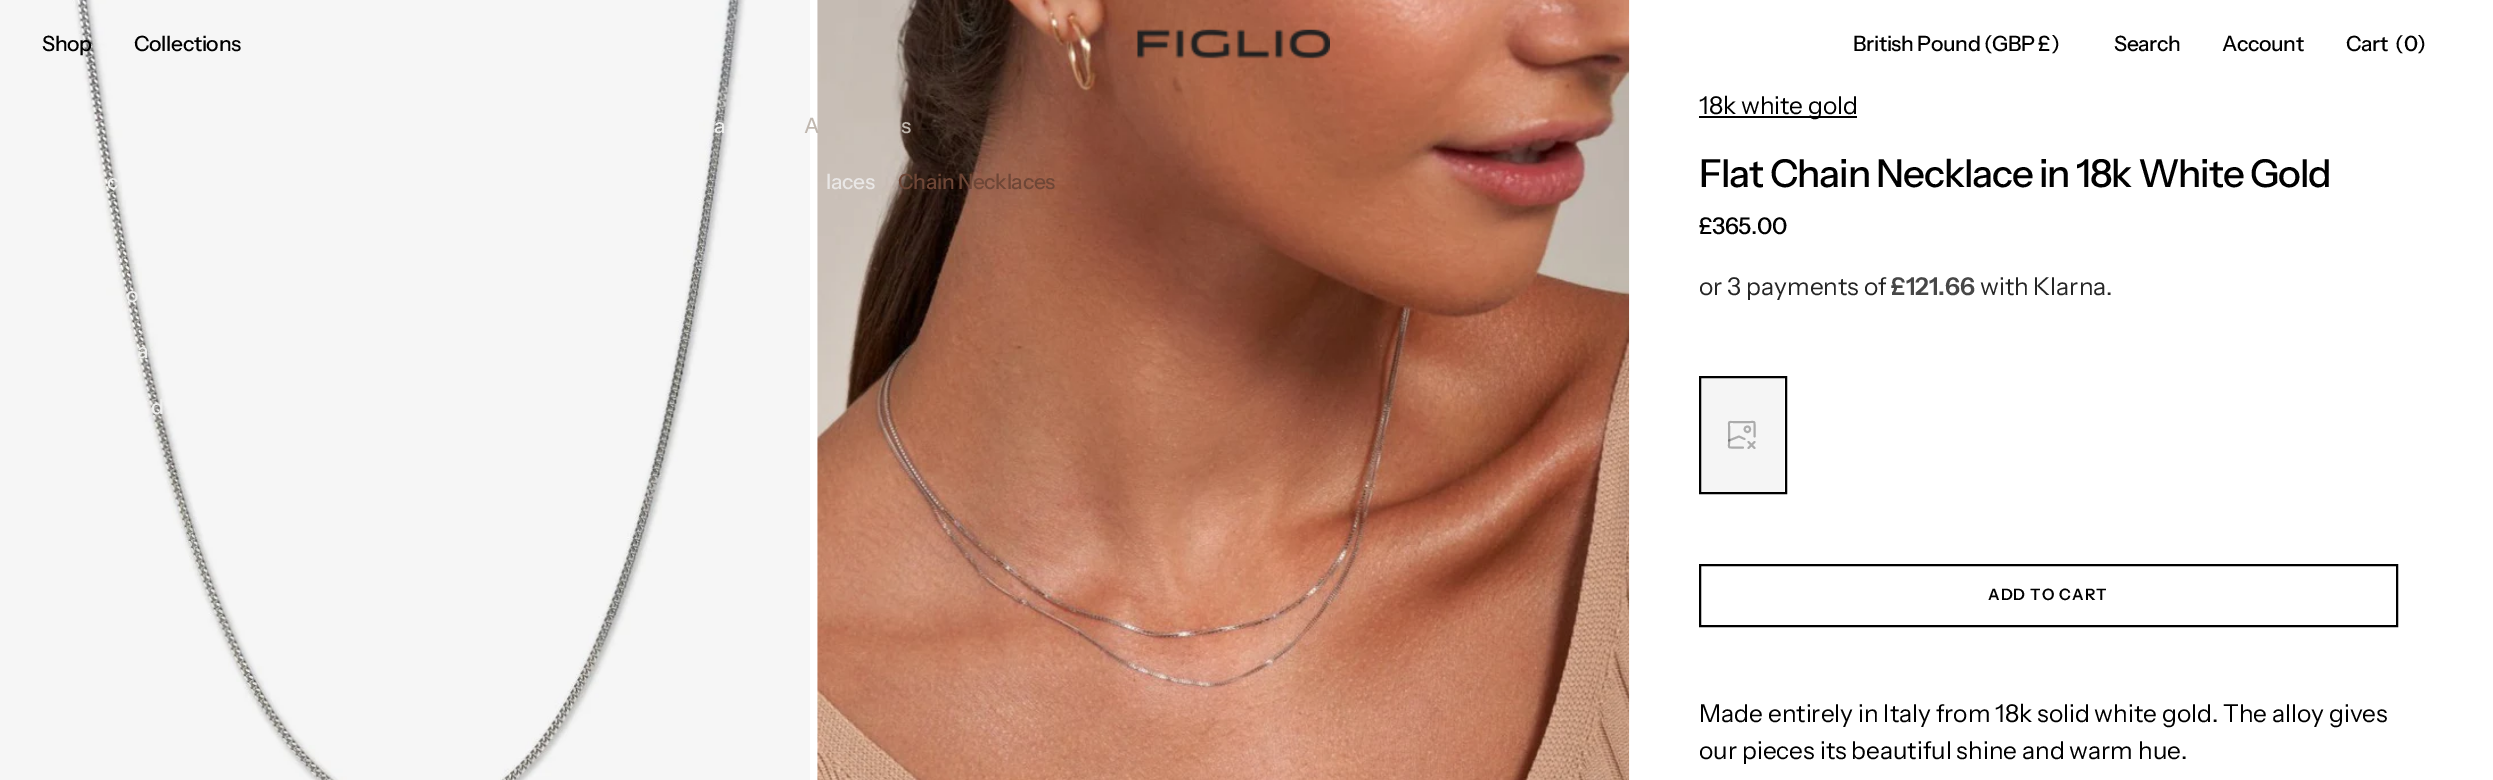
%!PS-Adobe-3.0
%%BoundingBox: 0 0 2493 780
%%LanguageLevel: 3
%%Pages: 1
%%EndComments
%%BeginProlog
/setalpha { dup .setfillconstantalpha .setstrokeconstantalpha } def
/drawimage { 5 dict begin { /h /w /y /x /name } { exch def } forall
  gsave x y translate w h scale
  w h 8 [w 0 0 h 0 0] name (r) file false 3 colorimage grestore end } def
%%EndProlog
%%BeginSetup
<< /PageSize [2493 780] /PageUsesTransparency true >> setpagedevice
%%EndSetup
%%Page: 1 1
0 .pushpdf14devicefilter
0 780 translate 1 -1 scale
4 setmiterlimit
1 setgray
0 0 2493 780 rectfill
(images/3.raw) 817 0 813 780 drawimage
(images/1.raw) 1137 29 193 30 drawimage
(images/2.raw) 0 0 810 780 drawimage
0 setgray
1699 116 158 2 rectfill
0.961 setgray
1701 378 83 114 rectfill
0.675 setgray
1.9 setlinewidth
1 setlinecap
1 setlinejoin
newpath 1729 440.5 moveto 1739 436.5 lineto 1744.5 439 lineto 1748.5 448 moveto 1751.5 445 lineto 1751.5 445 moveto 1754.5 442 lineto 1751.5 445 moveto 1748.5 442 lineto 1751.5 445 moveto 1754.5 448 lineto 1747.5 432 moveto 1743.5 432 1743.5 426.5 1747.5 426.5 curveto 1751 426.5 1751 432 1747.5 432 curveto closepath stroke
0.3 setalpha
0 setgray
newpath 1743 447.5 moveto 1732 447.5 lineto 1728 447.5 1729 447.5 1729 443 curveto 1729 427 lineto 1729 421 1728 422 1734 422 curveto 1749.5 422 lineto 1754.5 422 1754.5 421 1754.5 425 curveto 1754.5 436.5 lineto stroke
1 setalpha
2 setlinewidth
0 setlinecap
0 setlinejoin
1700 377 86 116 rectstroke
1700 565 697 61 rectstroke
/InstrumentSans-Medium [21.1 0 0 -21.1 0 0] selectfont
42 51 moveto -0.4 0 (Shop) ashow
0.933 0.933 0.929 setrgbcolor
714 133 moveto -0.4 0 (a) ashow
0.753 0.718 0.686 setrgbcolor
804 133 moveto -0.4 0 (A) ashow
901 133 moveto -0.4 0 (s) ashow
0.933 0.933 0.929 setrgbcolor
107 189 moveto -0.4 0 (c) ashow
0.914 0.906 0.902 setrgbcolor
826 189 moveto -0.4 0 (laces) ashow
0.431 0.275 0.212 setrgbcolor
898 189 moveto -0.4 0 (Chain Necklaces) ashow
0 setgray
134 51 moveto -0.4 0 (Collections) ashow
0.933 0.933 0.929 setrgbcolor
126 302 moveto -0.4 0 (o) ashow
137 358 moveto -0.4 0 (a) ashow
151 414 moveto -0.4 0 (d) ashow
0 setgray
1853 51 moveto -0.4 0 (British Pound \(GBP £\)) ashow
2114 51 moveto -0.4 0 (Search) ashow
2222 51 moveto -0.4 0 (Account) ashow
2346 51 moveto -0.4 0 (Cart) ashow
2395 51 moveto -0.4 0 (\(0\)) ashow
/InstrumentSans-Regular [24.5 0 0 -24.5 0 0] selectfont
1699 114 moveto (18k white gold) show
/InstrumentSans-Medium [38.5 0 0 -38.5 0 0] selectfont
1699 187 moveto -1.15 0 (Flat Chain Necklace in 18k White Gold) ashow
/InstrumentSans-Medium [23 0 0 -23 0 0] selectfont
1699 234 moveto -0.5 0 (£365.00) ashow
/InstrumentSans-Regular [24.5 0 0 -24.5 0 0] selectfont
0.149 setgray
1699 295 moveto (or 3 payments of) show
/InstrumentSans-SemiBold [24.5 0 0 -24.5 0 0] selectfont
0.278 setgray
1891 295 moveto (£121.66) show
/InstrumentSans-Regular [24.5 0 0 -24.5 0 0] selectfont
0.149 setgray
1980 295 moveto (with Klarna.) show
/InstrumentSans-SemiBold [15.75 0 0 -15.75 0 0] selectfont
0 setgray
1988 600 moveto 1 0 (ADD TO CART) ashow
/InstrumentSans-Regular [24.5 0 0 -24.5 0 0] selectfont
1699 722 moveto (Made entirely in Italy from 18k solid white gold. The alloy gives) show
1699 759 moveto (our pieces its beautiful shine and warm hue.) show
.poppdf14devicefilter showpage
%%EOF
